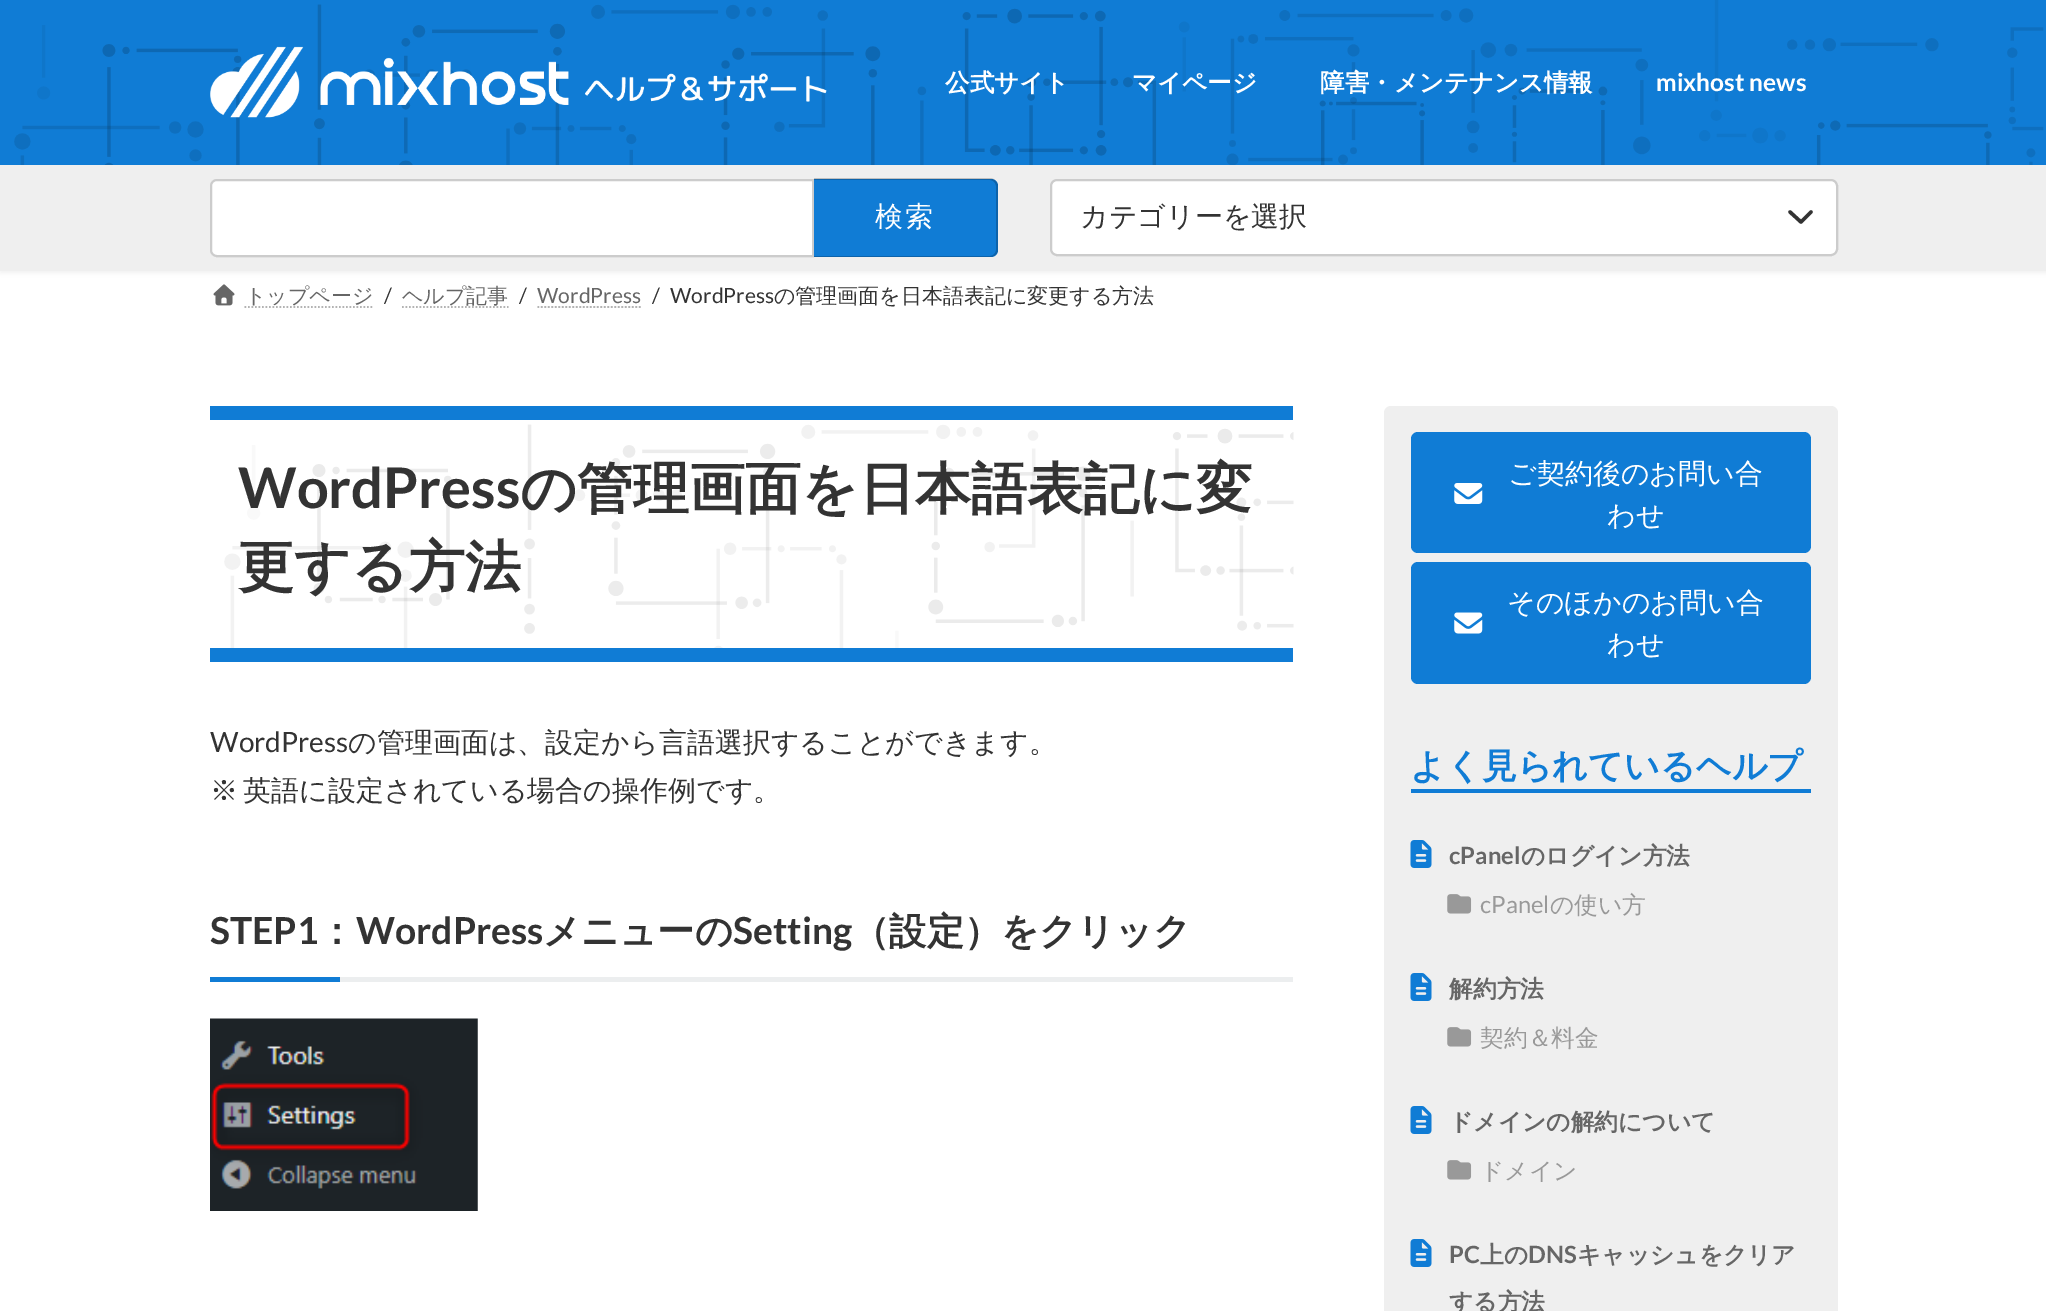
%!PS-Adobe-3.0
%%BoundingBox: 0 0 2046 1311
%%LanguageLevel: 3
%%Pages: 1
%%EndComments
%%BeginProlog
/setalpha { dup .setfillconstantalpha .setstrokeconstantalpha } def
/rrect { 5 dict begin { /r /h /w /y /x } { exch def } forall
  x r add y moveto x w add y 2 copy h add r arct x w add y h add x 1 index r arct
  x y h add x y r arct x y 2 copy exch w add exch r arct closepath end } def
/softshadow { 12 dict begin { /a /b /q /h /w /y /x } { exch def } forall gsave /was 0 def
  9 -2 -9 { dup b mul 4 div /e exch def 1 sub .425 mul 2.718 exch exp 1 add a .99 .min exch div /now exch def
    1 1 now sub 1 was sub div sub setalpha /was now def
    w h .min e 2 mul add 0 gt { x e sub y e sub w e 2 mul add h e 2 mul add
      q e add b .6 mul add w h .min 2 div e add .min 0 .max rrect fill } if } for grestore end } def
/drawimage { 5 dict begin { /h /w /y /x /name } { exch def } forall
  gsave x y translate w h scale
  w h 8 [w 0 0 h 0 0] name (r) file false 3 colorimage grestore end } def
%%EndProlog
%%BeginSetup
<< /PageSize [2046 1311] /PageUsesTransparency true >> setpagedevice
%%EndSetup
%%Page: 1 1
0 .pushpdf14devicefilter
0 1311 translate 1 -1 scale
4 setmiterlimit
1 setgray
0 0 2046 1311 rectfill
0 setgray
0 2 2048 271 0 2.5 0.05 softshadow
0.063 0.486 0.835 setrgbcolor
0 0 2046 165 rectfill
(images/1.raw) 14 0 2030 165 drawimage
(images/2.raw) 210 46 617 72 drawimage
0.937 setgray
0 165 2046 106 rectfill
1 setgray
newpath 217 179 moveto 814 179 lineto 814 257 lineto 217 257 lineto 213 257 210 254 210 250 curveto 210 186 lineto 210 182 213 179 217 179 curveto closepath fill
0.2 setalpha
0 setgray
2 setlinewidth
newpath 217 180 moveto 813 180 lineto 813 256 lineto 217 256 lineto 213.5 256 211 253.5 211 250 curveto 211 186 lineto 211 182.5 213.5 180 217 180 curveto closepath stroke
1 setalpha
0.063 0.486 0.835 setrgbcolor
newpath 814 179 moveto 991 179 lineto 995 179 998 182 998 186 curveto 998 250 lineto 998 254 995 257 991 257 curveto 814 257 lineto closepath fill
0.2 setalpha
0 setgray
newpath 814 178 moveto 990 178 lineto 994 178 998 182 998 186 curveto 998 250 lineto 998 254 994 257 990 257 curveto 814 257 lineto closepath 814 180 moveto 990 180 lineto 993 180 996 183 996 186 curveto 996 250 lineto 996 253 993 256 990 256 curveto 814 256 lineto closepath eofill
1 setalpha
1 setgray
1050 179 788 77 7 rrect fill
0.2 setgray
3.5 setlinewidth
1 setlinecap
1 setlinejoin
newpath 1790 212 moveto 1801 222 lineto 1811 212 lineto stroke
0.2 setalpha
0 setgray
2 setlinewidth
0 setlinecap
0 setlinejoin
1051 180 786 75 6 rrect stroke
1 setalpha
(images/3.raw) 213 284 22 22 drawimage
0.702 setgray
1.8 setlinewidth
[1.75 1.75] 0 setdash
newpath 244.5 307 moveto 373 307 lineto stroke
newpath 402 307 moveto 508.5 307 lineto stroke
newpath 537.5 307 moveto 641 307 lineto stroke
(images/4.raw) 224 424 1070 224 drawimage
0.063 0.486 0.835 setrgbcolor
210 406 1083 14 rectfill
210 648 1083 14 rectfill
0.5 setalpha
1 setgray
224 424 1069 224 rectfill
1 setalpha
0.925 0.933 0.937 setrgbcolor
340 977 953 5 rectfill
0.063 0.486 0.835 setrgbcolor
210 977 130 5 rectfill
(images/5.raw) 210 1018 268 193 drawimage
0.937 setgray
1384 406 454 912 7 rrect fill
0.063 0.486 0.835 setrgbcolor
1411 432 400 121 7 rrect fill
(images/6.raw) 1454 483 29 21 drawimage
1411 562 400 122 7 rrect fill
(images/7.raw) 1454 612 29 22 drawimage
1411 789 400 4 rectfill
(images/8.raw) 1410 840 22 28 drawimage
(images/9.raw) 1447 894 25 20 drawimage
(images/8.raw) 1410 973 22 28 drawimage
(images/9.raw) 1447 1027 25 20 drawimage
(images/8.raw) 1410 1106 22 28 drawimage
(images/9.raw) 1447 1160 25 20 drawimage
(images/8.raw) 1410 1239 22 28 drawimage
/WenQuanYiZenHei-Bold [24.5 0 0 -24.5 0 0] selectfont
1 setgray
945 91 moveto (公式サイト) show
1132 91 moveto (マイページ) show
1320 91 moveto (障害・メンテナンス情報) show
/Lato-Bold [24.5 0 0 -24.5 0 0] selectfont
1656 91 moveto (mixhost news) show
/WenQuanYiZenHei-Medium [28 0 0 -28 0 0] selectfont
875 226 moveto 2 0 (検索) ashow
0.2 setgray
1080 226 moveto (カテゴリーを選択) show
/WenQuanYiZenHei-Medium [21 0 0 -21 0 0] selectfont
0.4 setgray
245 303 moveto (トップページ) show
/Lato-Regular [21 0 0 -21 0 0] selectfont
0.2 setgray
384 303 moveto (/) show
/WenQuanYiZenHei-Medium [21 0 0 -21 0 0] selectfont
0.4 setgray
402 303 moveto (ヘルプ記事) show
/Lato-Regular [21 0 0 -21 0 0] selectfont
0.2 setgray
519 303 moveto (/) show
0.4 setgray
537 303 moveto (WordPress) show
0.2 setgray
652 303 moveto (/) show
670 303 moveto (WordPress) show
/WenQuanYiZenHei-Medium [21 0 0 -21 0 0] selectfont
774 303 moveto (の管理画面を日本語表記に変更する方法) show
/Lato-Bold [56 0 0 -56 0 0] selectfont
238 508 moveto (WordPress) show
/WenQuanYiZenHei-Bold [56 0 0 -56 0 0] selectfont
520 508 moveto (の管理画面を日本語表記に変) show
238 586 moveto (更する方法) show
/Lato-Regular [28 0 0 -28 0 0] selectfont
210 752 moveto (WordPress) show
/WenQuanYiZenHei-Medium [28 0 0 -28 0 0] selectfont
348 752 moveto (の管理画面は、設定から言語選択することができます。) show
210 800 moveto -3 0 32 (※ 英語に設定されている場合の操作例です。) widthshow
/Lato-Bold [37.25 0 0 -37.25 0 0] selectfont
210 944 moveto (STEP1) show
/WenQuanYiZenHei-Bold [37.25 0 0 -37.25 0 0] selectfont
318 944 moveto (：) show
/Lato-Bold [37.25 0 0 -37.25 0 0] selectfont
356 944 moveto (WordPress) show
/WenQuanYiZenHei-Bold [37.25 0 0 -37.25 0 0] selectfont
543 944 moveto (メニューの) show
/Lato-Bold [37.25 0 0 -37.25 0 0] selectfont
733 944 moveto (Setting) show
/WenQuanYiZenHei-Bold [37.25 0 0 -37.25 0 0] selectfont
852 944 moveto (（設定）をクリック) show
/WenQuanYiZenHei-Medium [28 0 0 -28 0 0] selectfont
1 setgray
1508 483 moveto (ご契約後のお問い合) show
1607 525 moveto (わせ) show
1507 612 moveto (そのほかのお問い合) show
1607 654 moveto (わせ) show
/WenQuanYiZenHei-Bold [35 0 0 -35 0 0] selectfont
0.063 0.486 0.835 setrgbcolor
1410 778 moveto (よく見られているヘルプ) show
/Lato-Bold [23.75 0 0 -23.75 0 0] selectfont
0.4 setgray
1449 864 moveto (cPanel) show
/WenQuanYiZenHei-Bold [23.75 0 0 -23.75 0 0] selectfont
1521 864 moveto (のログイン方法) show
/Lato-Regular [23.75 0 0 -23.75 0 0] selectfont
0.6 setgray
1480 913 moveto (cPanel) show
/WenQuanYiZenHei-Medium [23.75 0 0 -23.75 0 0] selectfont
1550 913 moveto (の使い方) show
/WenQuanYiZenHei-Bold [23.75 0 0 -23.75 0 0] selectfont
0.4 setgray
1449 997 moveto (解約方法) show
/WenQuanYiZenHei-Medium [23.75 0 0 -23.75 0 0] selectfont
0.6 setgray
1480 1046 moveto (契約＆料金) show
/WenQuanYiZenHei-Bold [23.75 0 0 -23.75 0 0] selectfont
0.4 setgray
1449 1130 moveto (ドメインの解約について) show
/WenQuanYiZenHei-Medium [23.75 0 0 -23.75 0 0] selectfont
0.6 setgray
1480 1179 moveto (ドメイン) show
/Lato-Bold [23.75 0 0 -23.75 0 0] selectfont
0.4 setgray
1449 1263 moveto (PC) show
/WenQuanYiZenHei-Bold [23.75 0 0 -23.75 0 0] selectfont
1480 1263 moveto (上の) show
/Lato-Bold [23.75 0 0 -23.75 0 0] selectfont
1528 1263 moveto (DNS) show
/WenQuanYiZenHei-Bold [23.75 0 0 -23.75 0 0] selectfont
1577 1263 moveto (キャッシュをクリア) show
1449 1310 moveto (する方法) show
.poppdf14devicefilter showpage
%%EOF
